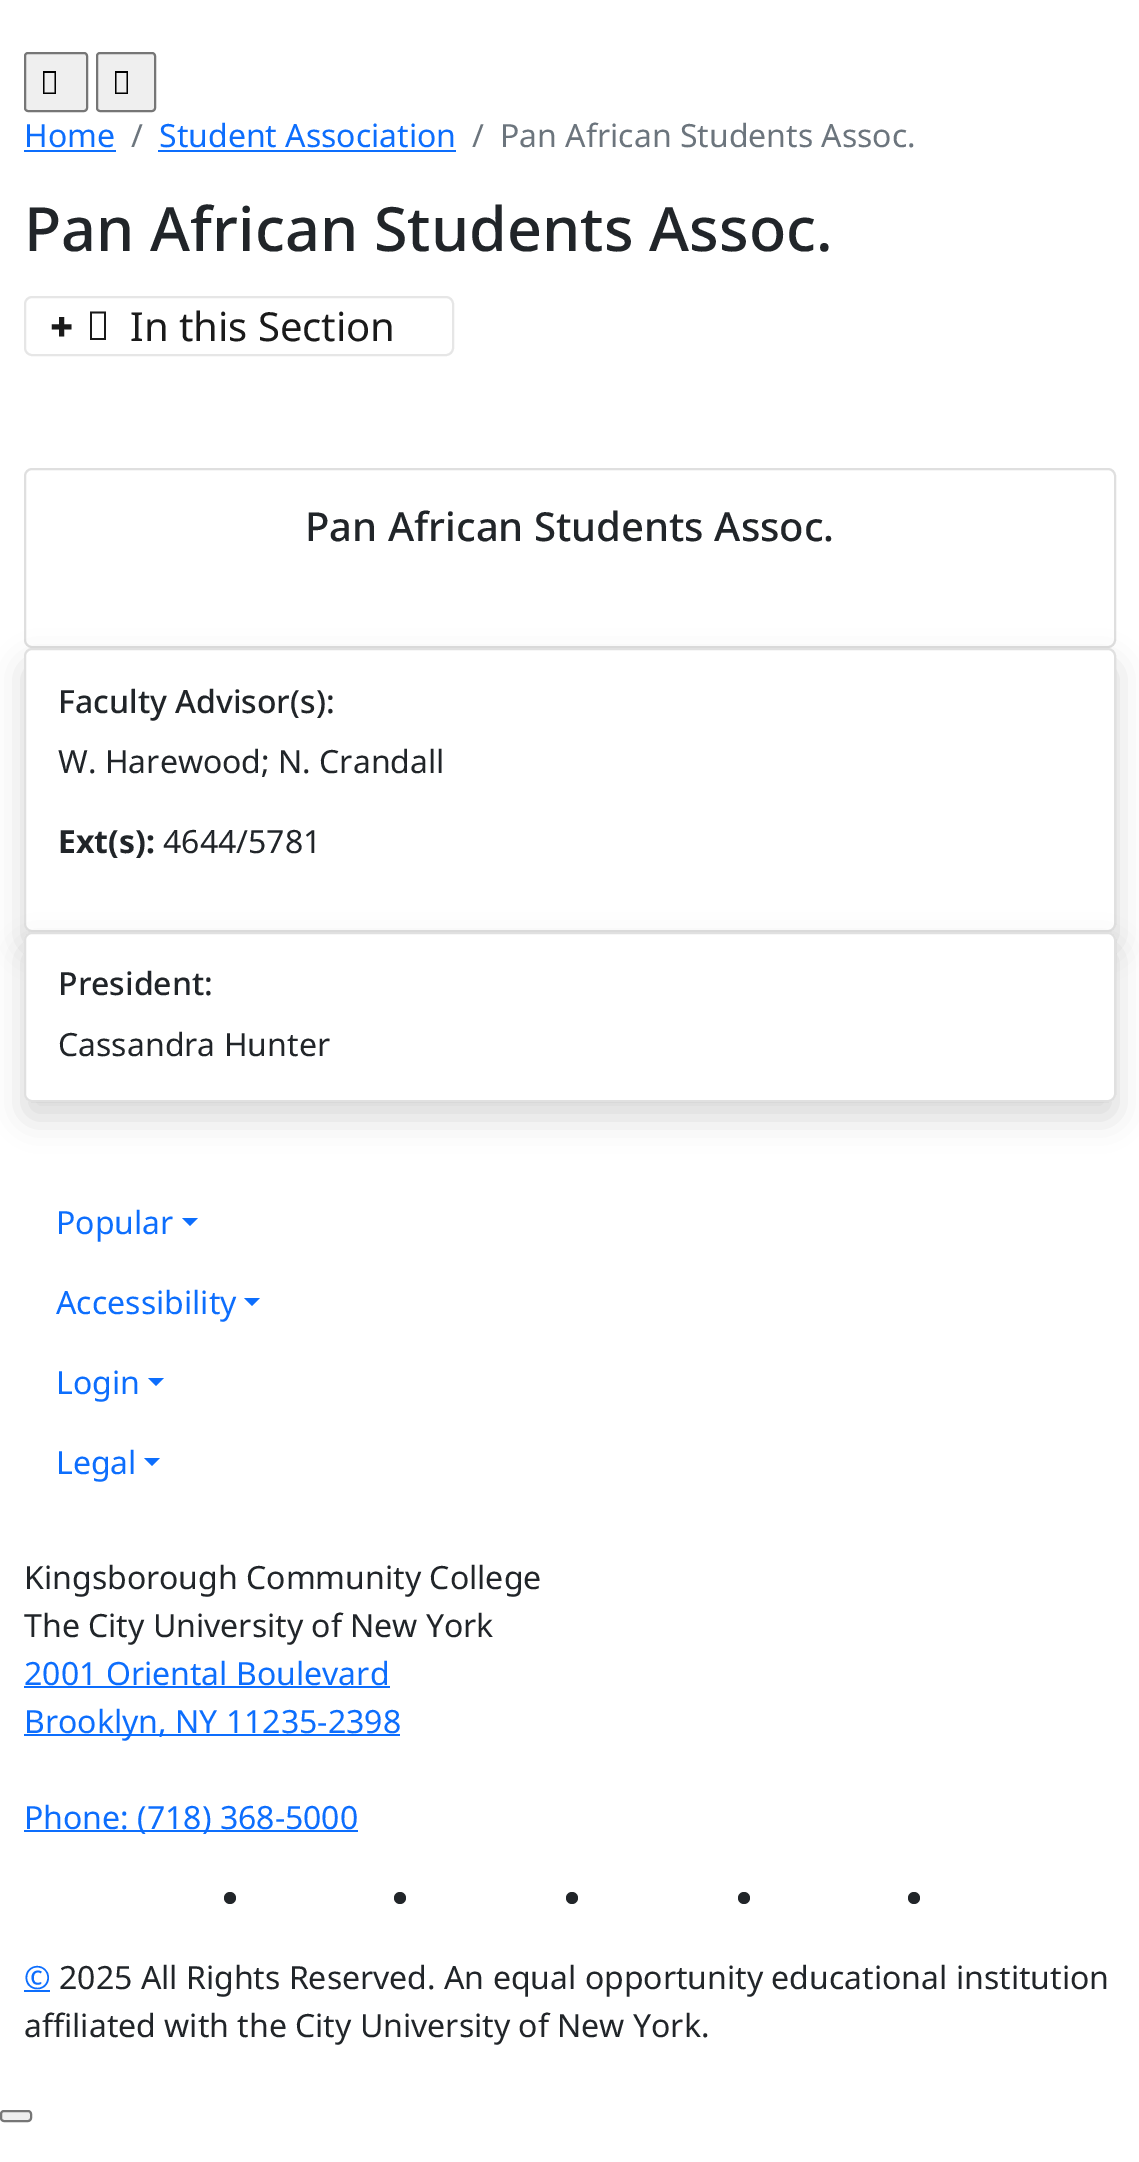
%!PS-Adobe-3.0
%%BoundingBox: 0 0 1139 2162
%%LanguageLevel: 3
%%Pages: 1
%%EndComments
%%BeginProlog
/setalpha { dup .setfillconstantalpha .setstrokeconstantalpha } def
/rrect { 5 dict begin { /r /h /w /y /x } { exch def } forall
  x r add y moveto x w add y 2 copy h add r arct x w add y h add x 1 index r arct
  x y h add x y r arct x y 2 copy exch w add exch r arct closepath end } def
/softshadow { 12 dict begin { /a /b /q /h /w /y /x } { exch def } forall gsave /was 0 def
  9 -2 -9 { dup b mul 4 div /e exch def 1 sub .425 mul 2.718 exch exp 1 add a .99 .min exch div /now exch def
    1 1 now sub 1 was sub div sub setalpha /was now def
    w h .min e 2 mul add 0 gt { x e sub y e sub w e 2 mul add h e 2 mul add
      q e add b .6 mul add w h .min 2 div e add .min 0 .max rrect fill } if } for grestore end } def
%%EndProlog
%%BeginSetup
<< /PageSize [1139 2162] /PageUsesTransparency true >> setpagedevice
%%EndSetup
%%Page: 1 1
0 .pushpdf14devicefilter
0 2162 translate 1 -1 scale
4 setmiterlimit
1 setgray
0 0 1139 2162 rectfill
0.937 setgray
25 53 62 58 3 rrect gsave fill grestore
0.463 setgray
2 setlinewidth
stroke
0 setgray
newpath 43 94 moveto 43 71 lineto 56 71 lineto 56 94 lineto closepath 44.5 92.5 moveto 54.5 92.5 lineto 54.5 73 lineto 44.5 73 lineto closepath fill
0.937 setgray
97 53 58 58 3 rrect gsave fill grestore
0.463 setgray
stroke
0 setgray
newpath 115 94 moveto 115 71 lineto 128 71 lineto 128 94 lineto closepath 116.5 92.5 moveto 126.5 92.5 lineto 126.5 73 lineto 116.5 73 lineto closepath fill
0.051 0.431 0.992 setrgbcolor
24 150 92 2 rectfill
158 150 298 2 rectfill
0.902 setgray
25 297 428 58 7 rrect stroke
0.102 setgray
newpath 90 340 moveto 90 311.5 lineto 106 311.5 lineto 106 340 lineto closepath 92 338 moveto 104 338 lineto 104 313.5 lineto 92 313.5 lineto closepath fill
0.875 setgray
25 469 1090 178 7 rrect stroke
0 setgray
24 664 1092 284 8 16 0.15 softshadow
1 setgray
24 648 1092 284 8 rrect fill
0.12 setalpha
0 setgray
25 649 1090 282 7 rrect stroke
1 setalpha
24 948 1092 170 8 16 0.15 softshadow
1 setgray
24 932 1092 170 8 rrect fill
0.12 setalpha
0 setgray
25 933 1090 168 7 rrect stroke
1 setalpha
0.051 0.431 0.992 setrgbcolor
newpath 182 1218 moveto 198 1218 lineto 190 1226 lineto closepath fill
newpath 244 1298 moveto 260 1298 lineto 252 1306 lineto closepath fill
newpath 148 1378 moveto 164 1378 lineto 156 1386 lineto closepath fill
newpath 144 1458 moveto 160 1458 lineto 152 1466 lineto closepath fill
24 1686 366 2 rectfill
24 1734 376 2 rectfill
24 1830 334 2 rectfill
0.129 0.145 0.161 setrgbcolor
newpath 230 1898 6 0 360 arc closepath fill
newpath 400 1898 6 0 360 arc closepath fill
newpath 572 1898 6 0 360 arc closepath fill
newpath 744 1898 6 0 360 arc closepath fill
newpath 914 1898 6 0 360 arc closepath fill
0.051 0.431 0.992 setrgbcolor
24 1990 26 2 rectfill
0.937 setgray
1 2111 30 10 3 rrect gsave fill grestore
0.463 setgray
stroke
/NotoSans-Regular [32 0 0 -32 0 0] selectfont
0.051 0.431 0.992 setrgbcolor
24 147 moveto (Home) show
0.424 0.459 0.49 setrgbcolor
131 147 moveto (/) show
0.051 0.431 0.992 setrgbcolor
159 147 moveto (Student Association) show
0.424 0.459 0.49 setrgbcolor
472 147 moveto (/) show
500 147 moveto (Pan African Students Assoc.) show
/NotoSans-Medium [61.1 0 0 -61.1 0 0] selectfont
0.129 0.145 0.161 setrgbcolor
24 251 moveto (Pan African Students Assoc.) show
/NotoSans-Black [40 0 0 -40 0 0] selectfont
0.102 setgray
50 341 moveto (+) show
/NotoSans-Regular [40 0 0 -40 0 0] selectfont
130 341 moveto (In this Section) show
/NotoSans-Medium [40 0 0 -40 0 0] selectfont
0.129 0.145 0.161 setrgbcolor
305 541 moveto (Pan African Students Assoc.) show
/NotoSans-Medium [32 0 0 -32 0 0] selectfont
58 713 moveto (Faculty Advisor\(s\):) show
/NotoSans-Regular [32 0 0 -32 0 0] selectfont
58 773 moveto (W. Harewood; N. Crandall) show
/NotoSans-Bold [32 0 0 -32 0 0] selectfont
58 853 moveto (Ext\(s\):) show
/NotoSans-Regular [32 0 0 -32 0 0] selectfont
163 853 moveto (4644/5781) show
/NotoSans-Medium [32 0 0 -32 0 0] selectfont
58 995 moveto (President:) show
/NotoSans-Regular [32 0 0 -32 0 0] selectfont
58 1056 moveto (Cassandra Hunter) show
0.051 0.431 0.992 setrgbcolor
56 1234 moveto (Popular) show
56 1314 moveto (Accessibility) show
56 1394 moveto (Login) show
56 1474 moveto (Legal) show
0.129 0.145 0.161 setrgbcolor
24 1589 moveto (Kingsborough Community College) show
24 1637 moveto (The City University of New York) show
0.051 0.431 0.992 setrgbcolor
24 1685 moveto (2001 Oriental Boulevard) show
24 1733 moveto (Brooklyn, NY 11235-2398) show
24 1829 moveto (Phone: \(718\) 368-5000) show
24 1989 moveto (©) show
0.129 0.145 0.161 setrgbcolor
59 1989 moveto (2025 All Rights Reserved. An equal opportunity educational institution) show
24 2037 moveto (affiliated with the City University of New York.) show
.poppdf14devicefilter showpage
%%EOF
